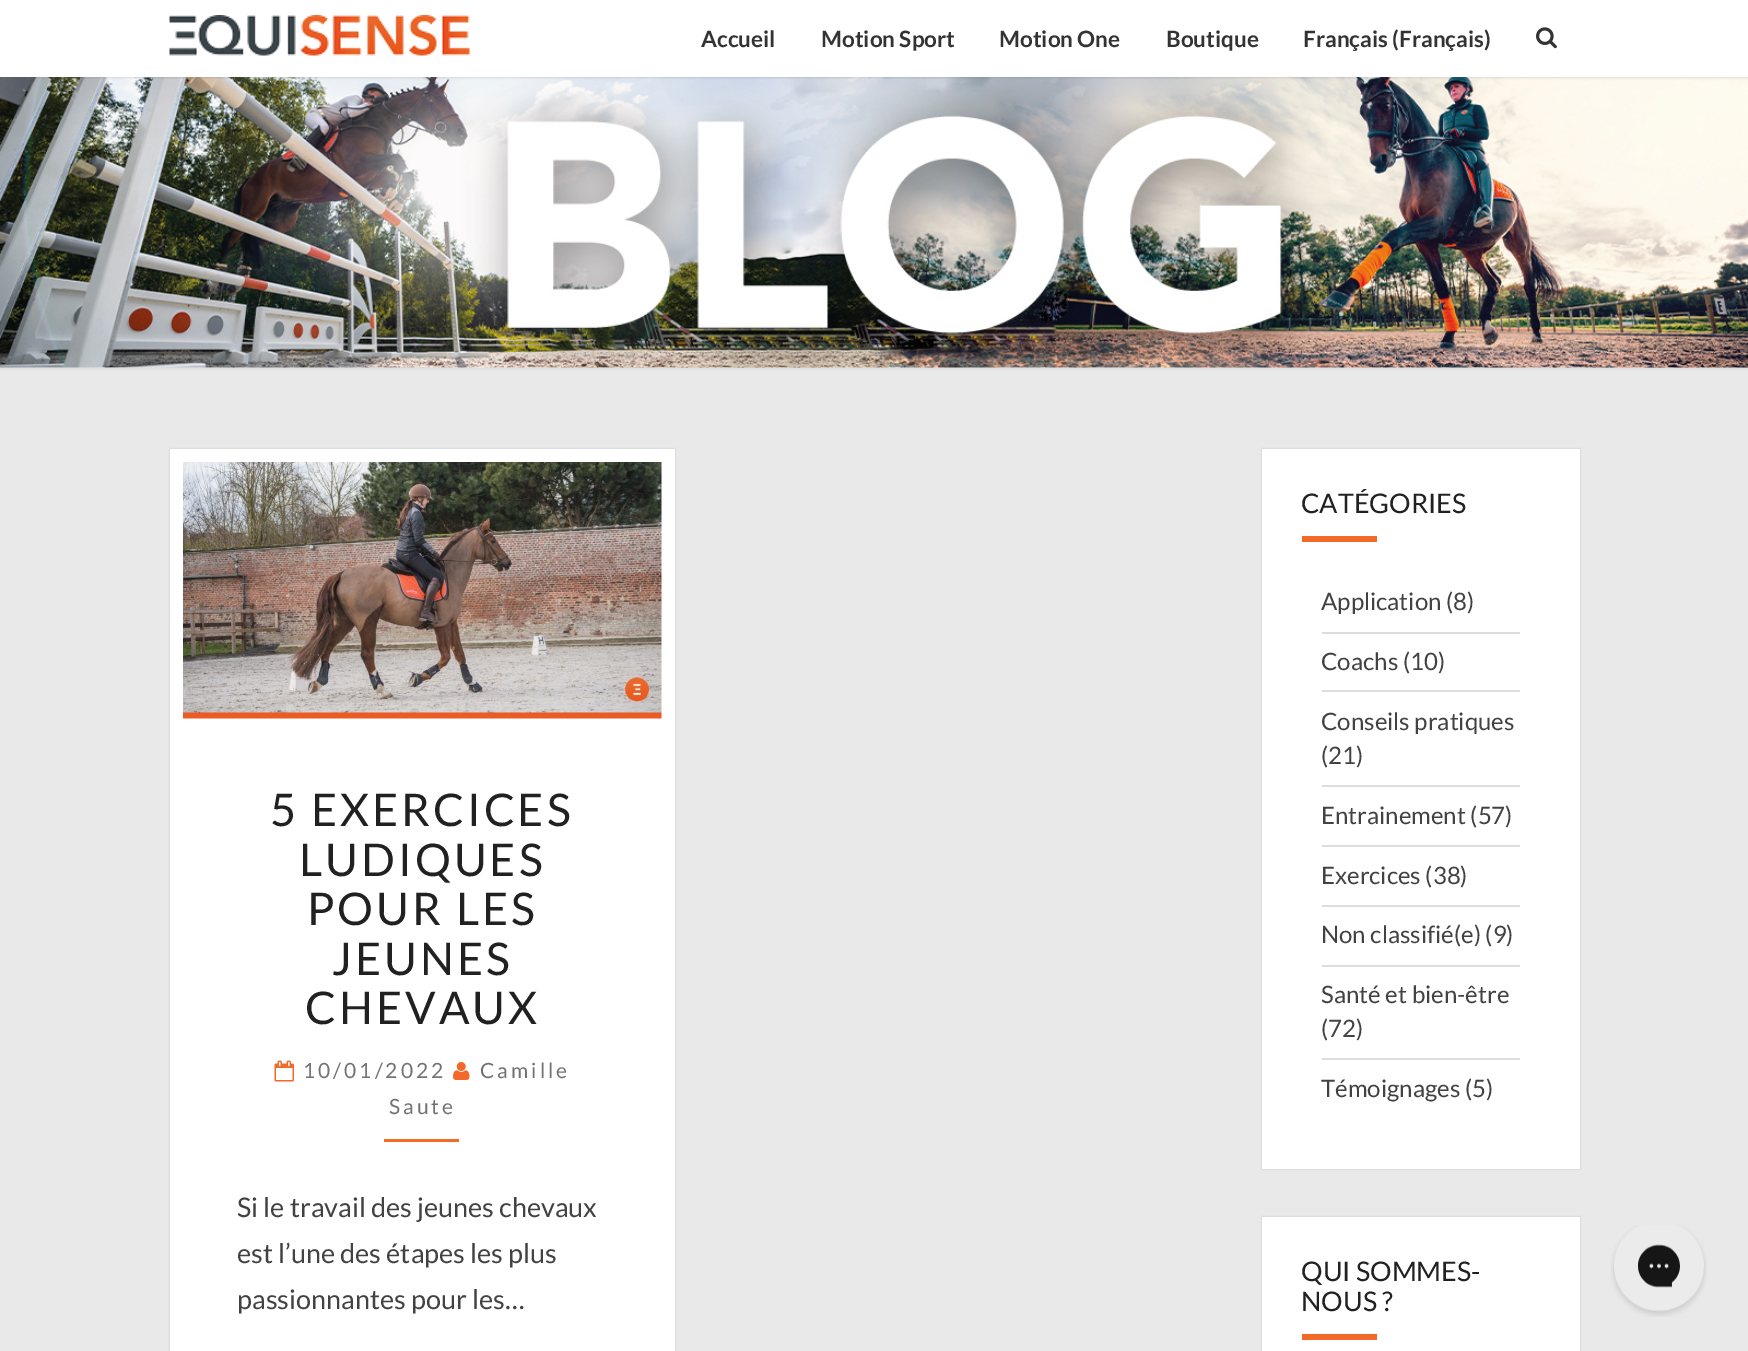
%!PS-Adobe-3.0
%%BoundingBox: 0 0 1748 1351
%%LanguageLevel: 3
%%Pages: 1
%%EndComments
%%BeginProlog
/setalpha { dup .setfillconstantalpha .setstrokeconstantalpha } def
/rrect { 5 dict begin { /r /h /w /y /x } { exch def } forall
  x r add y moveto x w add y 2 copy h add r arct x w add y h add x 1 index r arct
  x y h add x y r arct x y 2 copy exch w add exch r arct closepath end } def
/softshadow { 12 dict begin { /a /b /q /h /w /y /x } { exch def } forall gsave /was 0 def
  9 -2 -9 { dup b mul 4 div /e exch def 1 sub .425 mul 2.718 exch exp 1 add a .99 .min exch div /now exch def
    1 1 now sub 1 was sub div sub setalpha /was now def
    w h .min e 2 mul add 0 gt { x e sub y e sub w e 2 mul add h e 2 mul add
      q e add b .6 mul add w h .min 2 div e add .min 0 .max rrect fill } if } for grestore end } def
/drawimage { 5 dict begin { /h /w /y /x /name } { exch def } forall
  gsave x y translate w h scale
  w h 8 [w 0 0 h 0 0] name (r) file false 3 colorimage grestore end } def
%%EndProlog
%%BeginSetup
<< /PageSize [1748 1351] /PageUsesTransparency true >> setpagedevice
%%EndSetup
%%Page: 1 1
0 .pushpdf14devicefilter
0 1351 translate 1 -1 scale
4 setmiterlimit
0.914 setgray
0 0 1748 1351 rectfill
0.714 setgray
-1 -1 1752 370 0 1.5 0.3 softshadow
(images/1.raw) 0 77 1748 291 drawimage
0.392 setgray
0 2 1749 76 0 1 0.2 softshadow
1 setgray
0 0 1748 77 rectfill
(images/2.raw) 169 15 301 41 drawimage
(images/3.raw) 1536 27 21 22 drawimage
0 setgray
170 449 505 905 0 1 0.15 softshadow
1 setgray
170 449 505 902 rectfill
(images/4.raw) 183 462 479 257 drawimage
(images/5.raw) 274 1060 20 22 drawimage
(images/6.raw) 453 1062 17 18 drawimage
0.949 0.412 0.165 setrgbcolor
384 1139 75 3 rectfill
0 setgray
1262 449 318 720 0 1 0.15 softshadow
1 setgray
1262 449 318 720 rectfill
0.949 0.412 0.165 setrgbcolor
1302 536 75 6 rectfill
0.867 setgray
1322 632 198 2 rectfill
1322 690 198 2 rectfill
1322 785 198 2 rectfill
1322 845 198 2 rectfill
1322 905 198 2 rectfill
1322 965 198 2 rectfill
1322 1058 198 2 rectfill
0 setgray
1262 1217 318 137 0 1 0.15 softshadow
1 setgray
1262 1217 318 134 rectfill
0.949 0.412 0.165 setrgbcolor
1302 1334 75 6 rectfill
(images/7.raw) 1611 1225 96 92 drawimage
/Lato-Bold [22.5 0 0 -22.5 0 0] selectfont
0.2 setgray
701 47 moveto (Accueil) show
821 47 moveto (Motion Sport) show
999 47 moveto (Motion One) show
1166 47 moveto (Boutique) show
1303 47 moveto (Français \(Français\)) show
/Lato-Regular [45 0 0 -45 0 0] selectfont
0.129 setgray
270 826 moveto 3 0 (5 EXERCICES) ashow
299 876 moveto 3 0 (LUDIQUES) ashow
307 925 moveto 3 0 (POUR LES) ashow
332 975 moveto 3 0 (JEUNES) ashow
305 1024 moveto 3 0 (CHEVAUX) ashow
/Lato-Regular [21 0 0 -21 0 0] selectfont
0.447 setgray
303 1078 moveto 3 0 (10/01/2022) ashow
480 1078 moveto 3 0 (Camille) ashow
389 1114 moveto 3 0 (Saute) ashow
/Lato-Regular [27 0 0 -27 0 0] selectfont
0.259 setgray
237 1217 moveto (Si le travail des jeunes chevaux) show
237 1263 moveto (est l’une des étapes les plus) show
237 1309 moveto (passionnantes pour les…) show
0.129 setgray
1301 513 moveto (CATÉGORIES) show
/Lato-Regular [24 0 0 -24 0 0] selectfont
0.259 setgray
1321 610 moveto (Application \(8\)) show
1321 670 moveto (Coachs \(10\)) show
1321 730 moveto (Conseils pratiques) show
1321 764 moveto (\(21\)) show
1321 824 moveto (Entrainement \(57\)) show
1321 884 moveto (Exercices \(38\)) show
1321 943 moveto (Non classifié\(e\) \(9\)) show
1321 1003 moveto (Santé et bien-être) show
1321 1037 moveto (\(72\)) show
1321 1097 moveto (Témoignages \(5\)) show
/Lato-Regular [27 0 0 -27 0 0] selectfont
0.129 setgray
1301 1281 moveto (QUI SOMMES-) show
1301 1311 moveto (NOUS ?) show
.poppdf14devicefilter showpage
%%EOF
